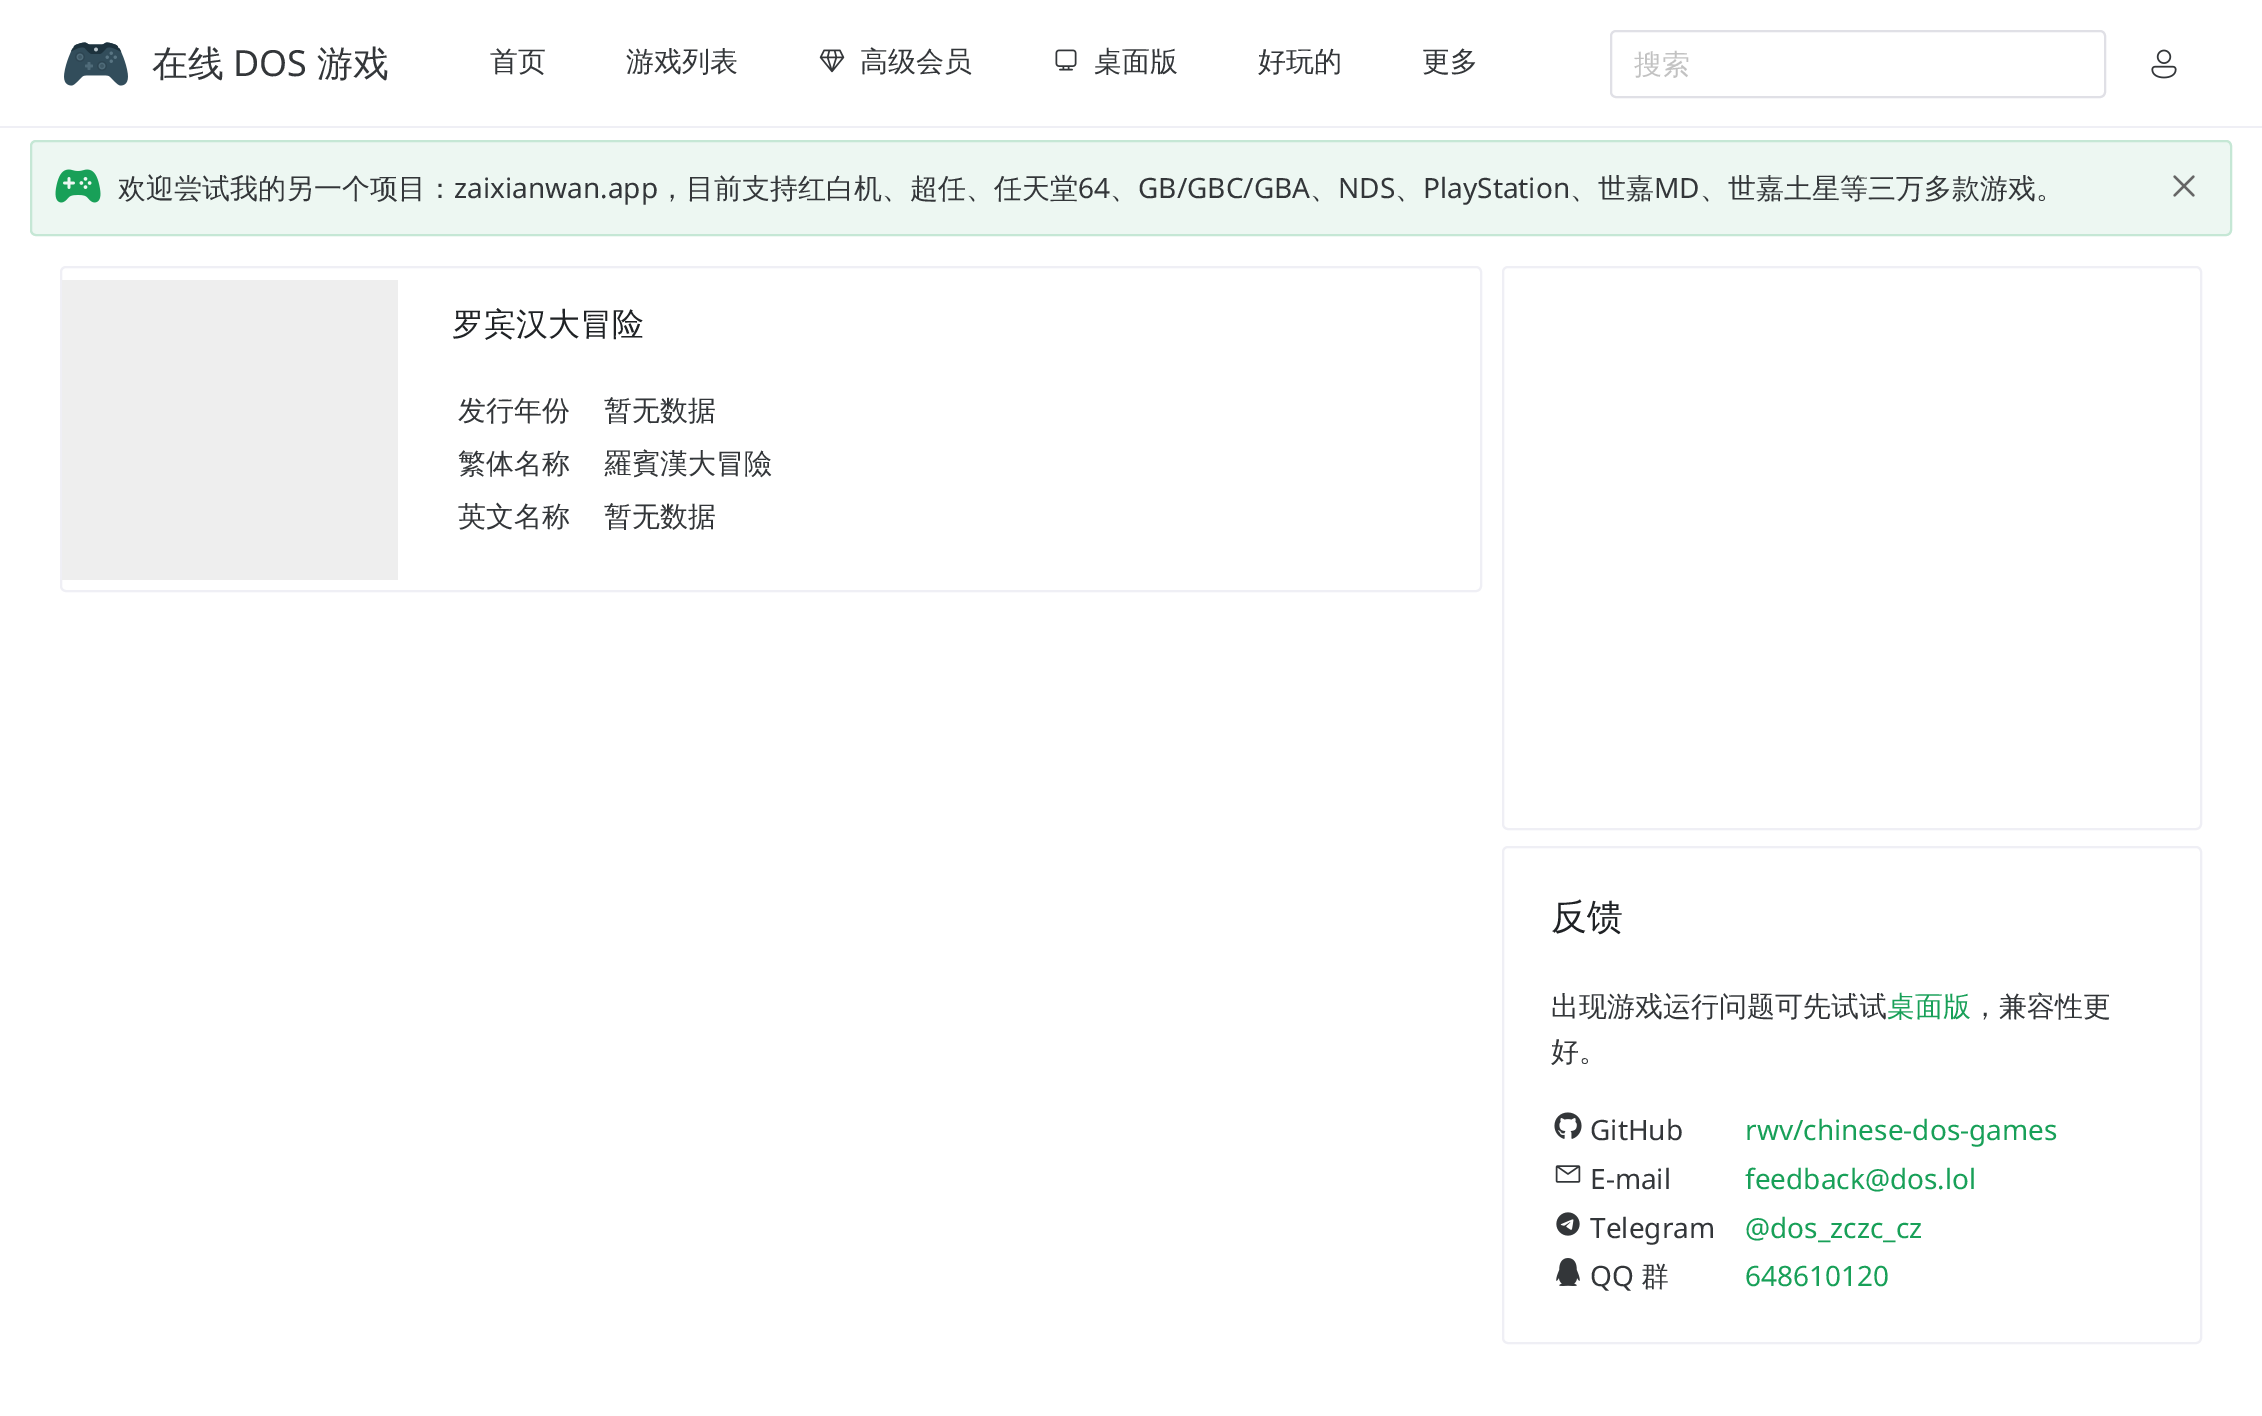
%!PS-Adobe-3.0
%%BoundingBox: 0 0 2262 1416
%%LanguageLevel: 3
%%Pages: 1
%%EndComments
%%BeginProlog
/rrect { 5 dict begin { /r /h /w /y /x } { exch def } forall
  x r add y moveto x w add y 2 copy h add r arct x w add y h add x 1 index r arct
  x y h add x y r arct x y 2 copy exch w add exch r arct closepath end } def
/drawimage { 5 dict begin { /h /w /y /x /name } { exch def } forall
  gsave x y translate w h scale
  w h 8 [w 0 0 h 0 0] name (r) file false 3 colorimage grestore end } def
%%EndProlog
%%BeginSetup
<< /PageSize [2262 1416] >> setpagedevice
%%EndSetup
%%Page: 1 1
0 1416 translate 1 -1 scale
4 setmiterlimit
1 setgray
0 0 2262 1416 rectfill
0.937 0.937 0.961 setrgbcolor
0 126 2262 2 rectfill
(images/1.raw) 64 42 64 44 drawimage
(images/2.raw) 819 49 26 24 drawimage
(images/3.raw) 1055 49 22 22 drawimage
0.878 0.878 0.902 setrgbcolor
2 setlinewidth
1611 31 494 66 5 rrect stroke
(images/4.raw) 2151 49 26 30 drawimage
0.929 0.969 0.949 setrgbcolor
30 140 2202 96 6 rrect fill
(images/6.raw) 2173 175 22 22 drawimage
0.773 0.906 0.835 setrgbcolor
31 141 2200 94 5 rrect stroke
(images/5.raw) 55 169 46 34 drawimage
0.937 0.937 0.961 setrgbcolor
61 267 1420 324 5 rrect stroke
0.933 setgray
62 280 336 300 rectfill
0.937 0.937 0.961 setrgbcolor
1503 267 698 562 5 rrect stroke
1503 847 698 496 5 rrect stroke
(images/7.raw) 1554 1112 28 27 drawimage
(images/8.raw) 1555 1165 26 18 drawimage
(images/9.raw) 1556 1212 24 24 drawimage
(images/10.raw) 1556 1258 24 28 drawimage
/WenQuanYiZenHei-Medium [36 0 0 -36 0 0] selectfont
0.2 0.212 0.224 setrgbcolor
152 76 moveto (在线) show
/NotoSans-Regular [36 0 0 -36 0 0] selectfont
233 76 moveto (DOS) show
/WenQuanYiZenHei-Medium [36 0 0 -36 0 0] selectfont
317 76 moveto (游戏) show
/WenQuanYiZenHei-Medium [28 0 0 -28 0 0] selectfont
490 71 moveto (首页) show
626 71 moveto (游戏列表) show
860 71 moveto (高级会员) show
1094 71 moveto (桌面版) show
1258 71 moveto (好玩的) show
1422 71 moveto (更多) show
0.761 setgray
1634 74 moveto (搜索) show
0.2 0.212 0.224 setrgbcolor
118 198 moveto (欢迎尝试我的另一个项目：) show
/NotoSans-Regular [28 0 0 -28 0 0] selectfont
454 198 moveto (zaixianwan.app) show
/WenQuanYiZenHei-Medium [28 0 0 -28 0 0] selectfont
658 198 moveto (，目前支持红白机、超任、任天堂) show
/NotoSans-Regular [28 0 0 -28 0 0] selectfont
1078 198 moveto (64) show
/WenQuanYiZenHei-Medium [28 0 0 -28 0 0] selectfont
1110 198 moveto (、) show
/NotoSans-Regular [28 0 0 -28 0 0] selectfont
1138 198 moveto (GB/GBC/GBA) show
/WenQuanYiZenHei-Medium [28 0 0 -28 0 0] selectfont
1310 198 moveto (、) show
/NotoSans-Regular [28 0 0 -28 0 0] selectfont
1338 198 moveto (NDS) show
/WenQuanYiZenHei-Medium [28 0 0 -28 0 0] selectfont
1395 198 moveto (、) show
/NotoSans-Regular [28 0 0 -28 0 0] selectfont
1423 198 moveto (PlayStation) show
/WenQuanYiZenHei-Medium [28 0 0 -28 0 0] selectfont
1570 198 moveto (、世嘉) show
/NotoSans-Regular [28 0 0 -28 0 0] selectfont
1654 198 moveto (MD) show
/WenQuanYiZenHei-Medium [28 0 0 -28 0 0] selectfont
1700 198 moveto (、世嘉土星等三万多款游戏。) show
/WenQuanYiZenHei-Medium [32 0 0 -32 0 0] selectfont
0.122 0.133 0.145 setrgbcolor
452 335 moveto (罗宾汉大冒险) show
/WenQuanYiZenHei-Medium [28 0 0 -28 0 0] selectfont
0.2 0.212 0.224 setrgbcolor
458 420 moveto (发行年份) show
604 420 moveto (暂无数据) show
458 473 moveto (繁体名称) show
604 473 moveto (羅賓漢大冒險) show
458 526 moveto (英文名称) show
604 526 moveto (暂无数据) show
/WenQuanYiZenHei-Medium [36 0 0 -36 0 0] selectfont
0.122 0.133 0.145 setrgbcolor
1551 929 moveto (反馈) show
/WenQuanYiZenHei-Medium [28 0 0 -28 0 0] selectfont
0.2 0.212 0.224 setrgbcolor
1551 1016 moveto (出现游戏运行问题可先试试) show
0.094 0.627 0.345 setrgbcolor
1887 1016 moveto (桌面版) show
0.2 0.212 0.224 setrgbcolor
1971 1016 moveto (，兼容性更) show
1551 1061 moveto (好。) show
/NotoSans-Regular [28 0 0 -28 0 0] selectfont
1590 1140 moveto (GitHub) show
0.094 0.627 0.345 setrgbcolor
1745 1140 moveto (rwv/chinese-dos-games) show
0.2 0.212 0.224 setrgbcolor
1590 1189 moveto (E-mail) show
0.094 0.627 0.345 setrgbcolor
1745 1189 moveto (feedback@dos.lol) show
0.2 0.212 0.224 setrgbcolor
1590 1238 moveto (Telegram) show
0.094 0.627 0.345 setrgbcolor
1745 1238 moveto (@dos_zczc_cz) show
0.2 0.212 0.224 setrgbcolor
1590 1286 moveto (QQ) show
/WenQuanYiZenHei-Medium [28 0 0 -28 0 0] selectfont
1641 1286 moveto (群) show
/NotoSans-Regular [28 0 0 -28 0 0] selectfont
0.094 0.627 0.345 setrgbcolor
1745 1286 moveto (648610120) show
showpage
%%EOF
